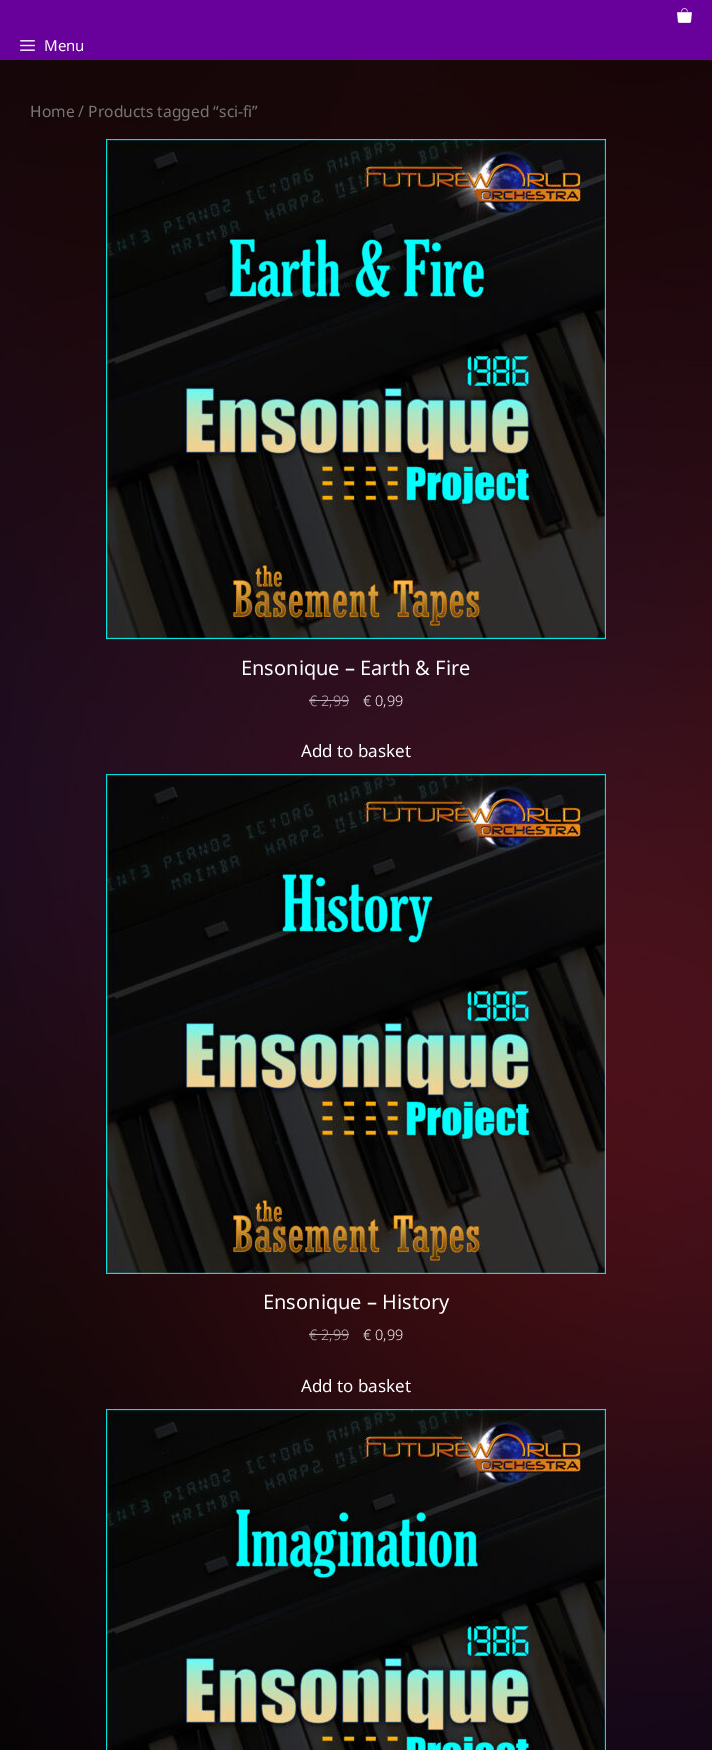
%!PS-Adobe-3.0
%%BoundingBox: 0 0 712 1750
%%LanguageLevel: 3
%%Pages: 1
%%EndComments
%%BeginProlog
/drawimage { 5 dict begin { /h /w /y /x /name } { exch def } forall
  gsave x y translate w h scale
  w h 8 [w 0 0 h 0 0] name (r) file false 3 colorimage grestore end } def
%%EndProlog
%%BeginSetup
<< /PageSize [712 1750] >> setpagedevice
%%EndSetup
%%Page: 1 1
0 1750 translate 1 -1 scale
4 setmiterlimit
1 setgray
0 0 712 1750 rectfill
(images/1.raw) 0 60 712 1690 drawimage
0.408 0 0.608 setrgbcolor
0 0 712 60 rectfill
(images/2.raw) 677 8 15 15 drawimage
(images/3.raw) 20 40 15 11 drawimage
(images/4.raw) 106 139 500 500 drawimage
0.753 0.718 0.737 setrgbcolor
309 700 8 1 rectfill
(images/5.raw) 106 774 500 500 drawimage
(images/6.raw) 106 1409 500 341 drawimage
/NotoSans-Regular [15 0 0 -15 0 0] selectfont
1 setgray
44 51 moveto (Menu) show
/NotoSans-Regular [15.6 0 0 -15.6 0 0] selectfont
0.463 setgray
30 117 moveto (Home / Products tagged “sci-fi”) show
/NotoSans-Regular [20 0 0 -20 0 0] selectfont
1 setgray
241 675 moveto (Ensonique – Earth & Fire) show
/NotoSans-Light [14.5 0 0 -14.5 0 0] selectfont
0.753 0.718 0.737 setrgbcolor
309 706 moveto (€) show
321 706 moveto (2,99) show
0.753 0.714 0.737 setrgbcolor
317 700 32 1 rectfill
1 setgray
363 706 moveto (€ 0,99) show
/NotoSans-Regular [17 0 0 -17 0 0] selectfont
301 757 moveto (Add to basket) show
/NotoSans-Regular [20 0 0 -20 0 0] selectfont
263 1309 moveto (Ensonique – History) show
/NotoSans-Light [14.5 0 0 -14.5 0 0] selectfont
0.753 0.718 0.737 setrgbcolor
309 1340 moveto (€) show
0.753 0.71 0.718 setrgbcolor
309 1334 8 1 rectfill
0.753 0.718 0.737 setrgbcolor
321 1340 moveto (2,99) show
0.753 0.714 0.718 setrgbcolor
317 1334 32 1 rectfill
1 setgray
363 1340 moveto (€ 0,99) show
/NotoSans-Regular [17 0 0 -17 0 0] selectfont
301 1392 moveto (Add to basket) show
showpage
%%EOF
